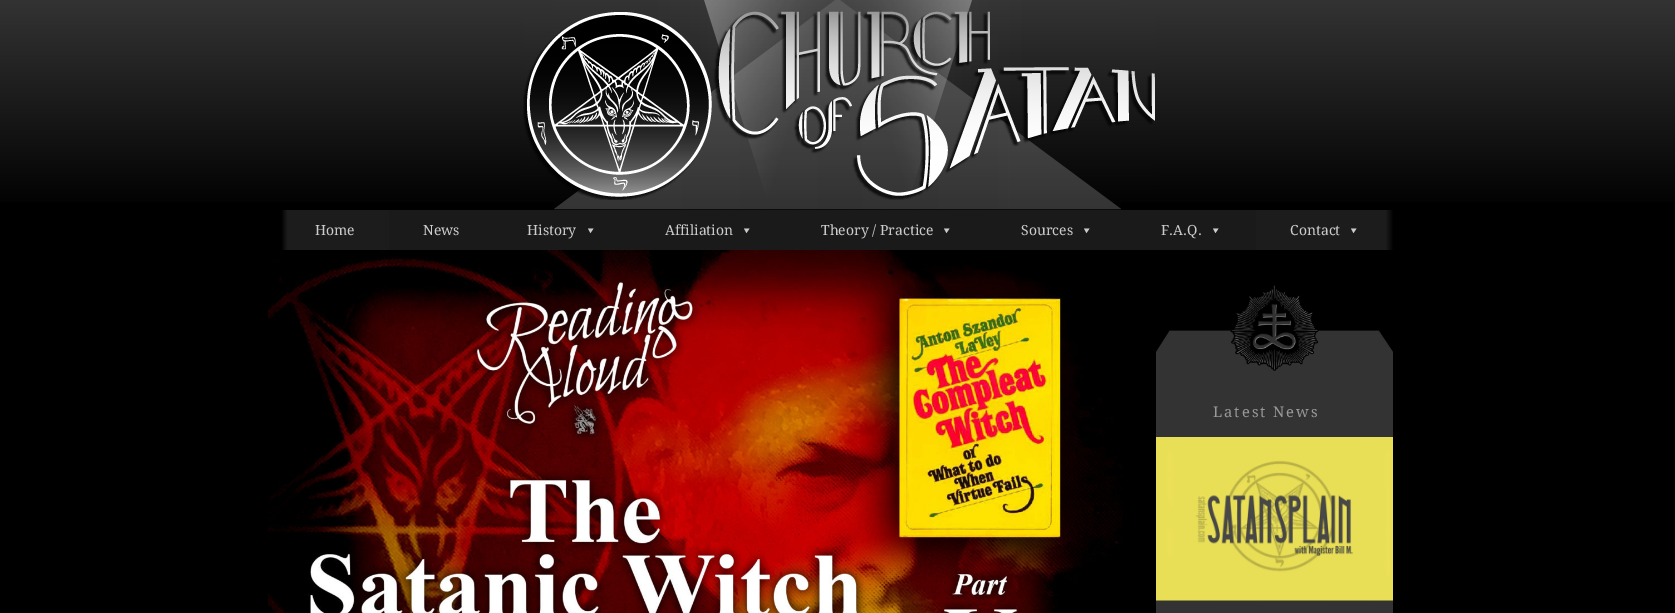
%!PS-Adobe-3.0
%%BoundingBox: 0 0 1675 613
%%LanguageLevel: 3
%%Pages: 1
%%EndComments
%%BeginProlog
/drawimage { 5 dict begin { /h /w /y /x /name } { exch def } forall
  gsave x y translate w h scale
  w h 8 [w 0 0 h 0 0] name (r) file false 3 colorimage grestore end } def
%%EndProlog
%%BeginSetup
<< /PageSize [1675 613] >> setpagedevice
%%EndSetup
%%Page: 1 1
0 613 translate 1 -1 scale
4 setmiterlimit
0 setgray
0 0 1675 613 rectfill
gsave newpath 0 0 moveto 1675 0 lineto 1675 202 lineto 0 202 lineto closepath clip newpath
<< /ShadingType 2 /ColorSpace /DeviceRGB /Coords [838 0 838 250] /Extend [true true] /Function << /FunctionType 3 /Domain [0 1] /Functions [<< /FunctionType 2 /Domain [0 1] /C0 [0.2 0.2 0.2] /C1 [0 0 0] /N 1 >> << /FunctionType 2 /Domain [0 1] /C0 [0 0 0] /C1 [0 0 0] /N 1 >>] /Bounds [0.85] /Encode [0 1 0 1] >> >> shfill grestore
(images/1.raw) 554 0 567 210 drawimage
(images/2.raw) 523 11 632 189 drawimage
0.102 setgray
389 210 867 40 rectfill
gsave newpath 282 210 moveto 389 210 lineto 389 250 lineto 282 250 lineto closepath clip newpath
<< /ShadingType 2 /ColorSpace /DeviceRGB /Coords [281 230 389 230] /Extend [true true] /Function << /FunctionType 3 /Domain [0 1] /Functions [<< /FunctionType 2 /Domain [0 1] /C0 [0 0 0] /C1 [0.11 0.11 0.11] /N 1 >> << /FunctionType 2 /Domain [0 1] /C0 [0.11 0.11 0.11] /C1 [0.11 0.11 0.11] /N 1 >>] /Bounds [0.06] /Encode [0 1 0 1] >> >> shfill grestore
0.8 setgray
newpath 593.5 228.5 moveto 590.5 233 lineto 588 228.5 lineto closepath fill
newpath 749.5 228.5 moveto 746.5 233 lineto 744 228.5 lineto closepath fill
newpath 949.5 228.5 moveto 946.5 233 lineto 944 228.5 lineto closepath fill
newpath 1089.5 228.5 moveto 1086.5 233 lineto 1084 228.5 lineto closepath fill
newpath 1218.5 228.5 moveto 1215.5 233 lineto 1213 228.5 lineto closepath fill
gsave newpath 1256 210 moveto 1393 210 lineto 1393 250 lineto 1256 250 lineto closepath clip newpath
<< /ShadingType 2 /ColorSpace /DeviceRGB /Coords [1256 230 1394 230] /Extend [true true] /Function << /FunctionType 3 /Domain [0 1] /Functions [<< /FunctionType 2 /Domain [0 1] /C0 [0.11 0.11 0.11] /C1 [0.11 0.11 0.11] /N 1 >> << /FunctionType 2 /Domain [0 1] /C0 [0.11 0.11 0.11] /C1 [0 0 0] /N 1 >>] /Bounds [0.94] /Encode [0 1 0 1] >> >> shfill grestore
newpath 1356.5 228.5 moveto 1353.5 233 lineto 1351 228.5 lineto closepath fill
(images/3.raw) 268 250 855 363 drawimage
0.2 setgray
1156 371 237 242 rectfill
(images/4.raw) 1156 250 237 121 drawimage
(images/5.raw) 1156 437 237 164 drawimage
/DroidSerif-Regular [14 0 0 -14 0 0] selectfont
0.8 setgray
315 235 moveto (Home) show
423 235 moveto (News) show
527 235 moveto (History) show
665 235 moveto (Affiliation) show
821 235 moveto (Theory / Practice) show
1021 235 moveto (Sources) show
1161 235 moveto (F.A.Q.) show
1290 235 moveto (Contact) show
/DroidSerif-Regular [14.75 0 0 -14.75 0 0] selectfont
0.6 setgray
1213 417 moveto 2 0 (Latest News) ashow
showpage
%%EOF
